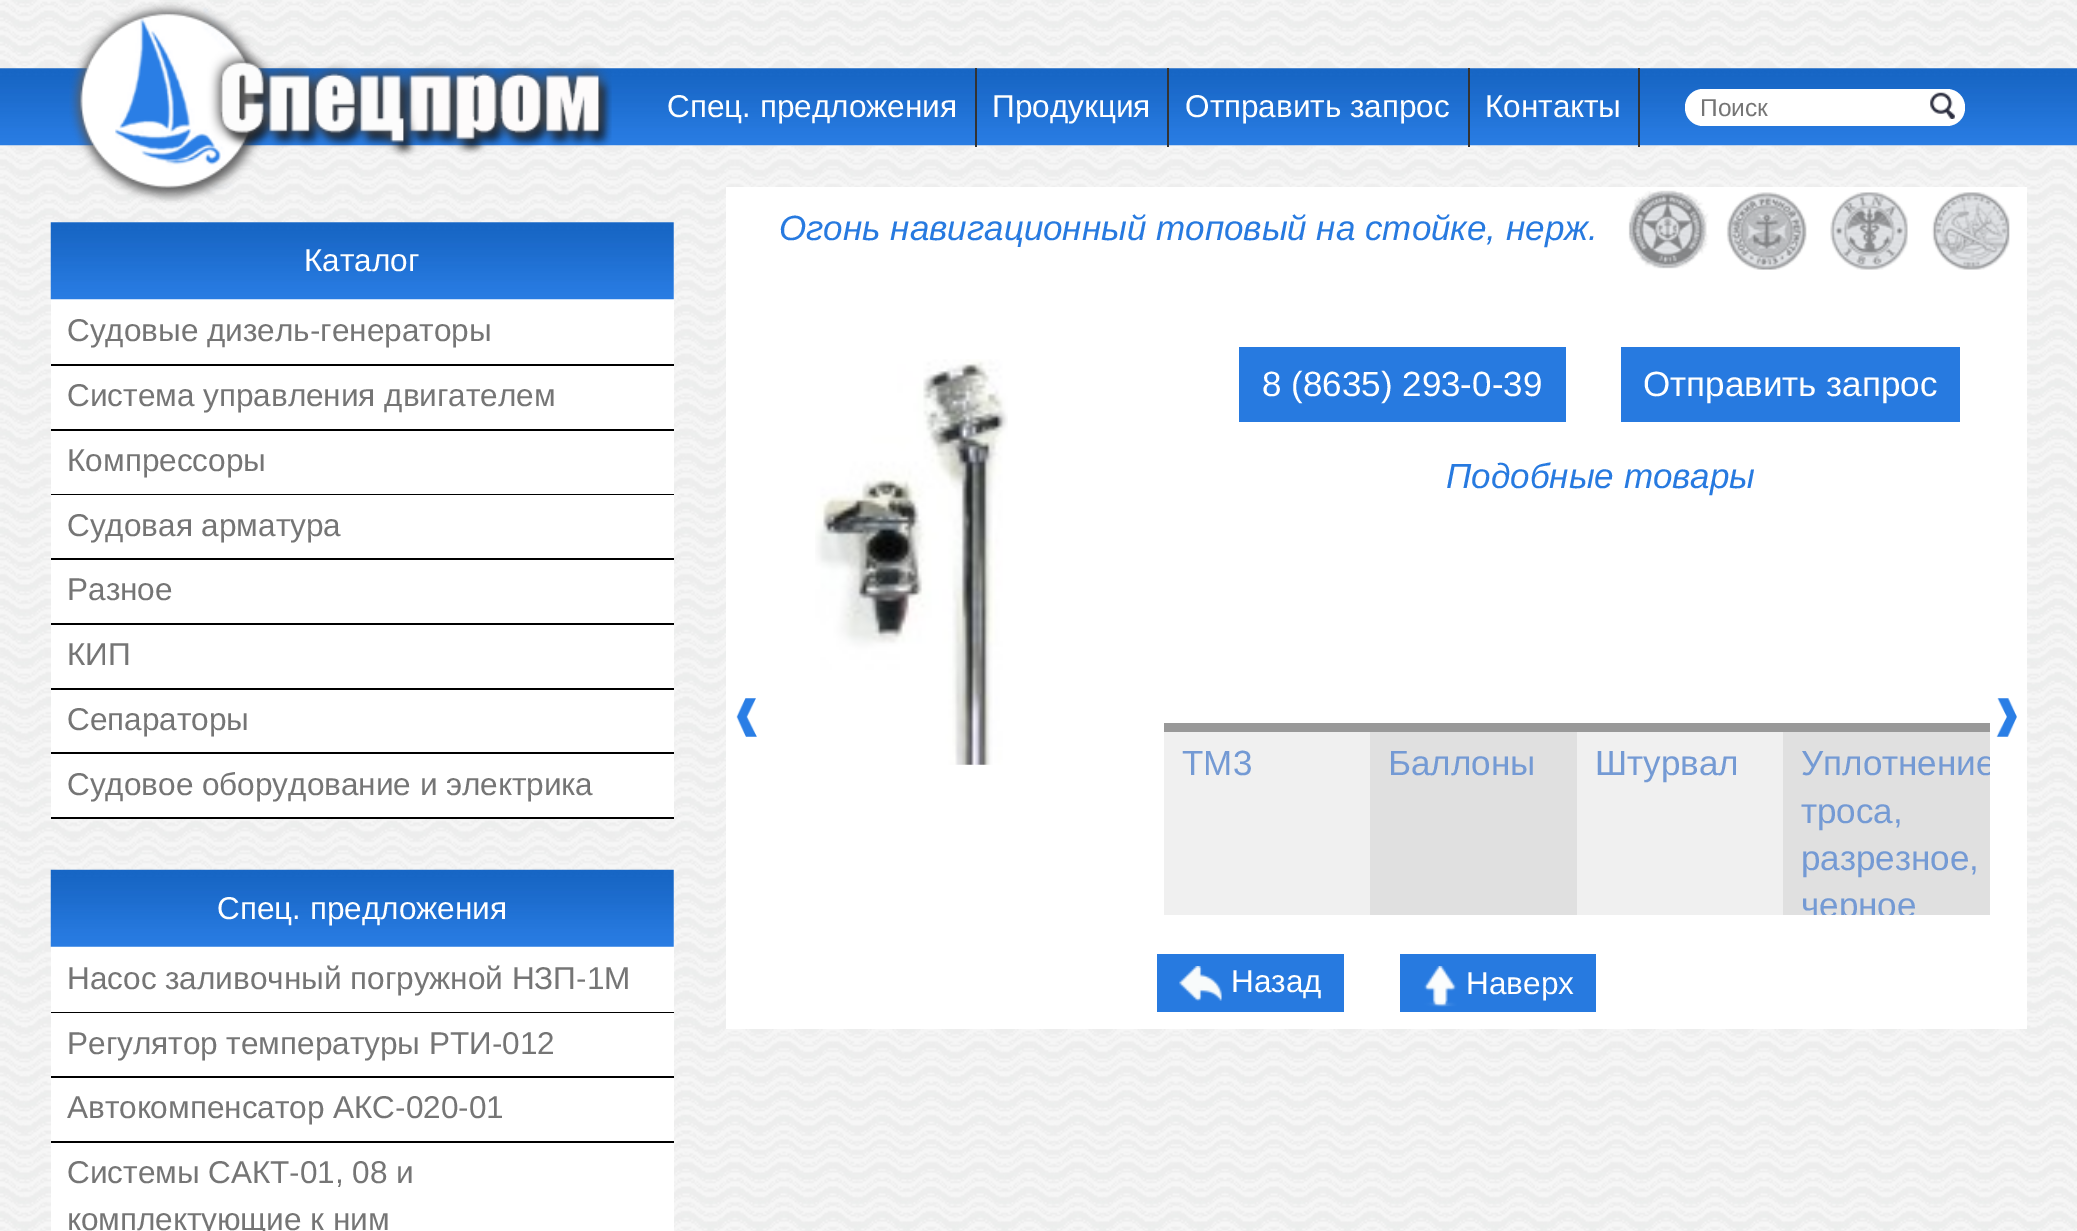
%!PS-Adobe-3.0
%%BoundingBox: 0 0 2077 1231
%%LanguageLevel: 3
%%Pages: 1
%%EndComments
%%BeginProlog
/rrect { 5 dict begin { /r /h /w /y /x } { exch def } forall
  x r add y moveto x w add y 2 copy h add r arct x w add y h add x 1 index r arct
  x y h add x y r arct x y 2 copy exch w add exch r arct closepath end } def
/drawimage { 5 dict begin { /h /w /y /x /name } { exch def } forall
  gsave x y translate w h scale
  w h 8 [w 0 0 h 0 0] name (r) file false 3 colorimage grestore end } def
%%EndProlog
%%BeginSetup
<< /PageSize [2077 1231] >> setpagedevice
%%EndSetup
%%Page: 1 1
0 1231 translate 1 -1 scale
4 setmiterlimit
1 setgray
0 0 2077 1231 rectfill
(images/1.raw) 0 0 2077 1231 drawimage
(images/2.raw) 0 68 2077 78 drawimage
(images/3.raw) 69 2 543 201 drawimage
0.2 setgray
newpath 651 68 moveto 975 68 lineto 975 147 lineto 977 147 lineto 977 68 lineto closepath fill
newpath 977 68 moveto 1167 68 lineto 1167 147 lineto 1169 147 lineto 1169 68 lineto closepath fill
newpath 1169 68 moveto 1468 68 lineto 1468 147 lineto 1470 147 lineto 1470 68 lineto closepath fill
newpath 1470 68 moveto 1638 68 lineto 1638 147 lineto 1640 147 lineto 1640 68 lineto closepath fill
1 setgray
1685 89 280 37 18 rrect fill
(images/4.raw) 1930 92 25 27 drawimage
51 222 623 595 rectfill
(images/5.raw) 50 222 624 78 drawimage
0 setgray
newpath 51 364 moveto 51 366 lineto 674 366 lineto 674 301 lineto 674 364 lineto closepath fill
newpath 51 429 moveto 51 431 lineto 674 431 lineto 674 366 lineto 674 429 lineto closepath fill
newpath 51 494 moveto 51 495 lineto 674 495 lineto 674 431 lineto 674 494 lineto closepath fill
newpath 51 558 moveto 51 560 lineto 674 560 lineto 674 495 lineto 674 558 lineto closepath fill
newpath 51 623 moveto 51 625 lineto 674 625 lineto 674 560 lineto 674 623 lineto closepath fill
newpath 51 688 moveto 51 690 lineto 674 690 lineto 674 625 lineto 674 688 lineto closepath fill
newpath 51 752 moveto 51 754 lineto 674 754 lineto 674 690 lineto 674 752 lineto closepath fill
newpath 51 817 moveto 51 819 lineto 674 819 lineto 674 754 lineto 674 817 lineto closepath fill
1 setgray
51 870 623 361 rectfill
(images/6.raw) 50 869 624 78 drawimage
0 setgray
newpath 51 1012 moveto 51 1013 lineto 674 1013 lineto 674 949 lineto 674 1012 lineto closepath fill
newpath 51 1076 moveto 51 1078 lineto 674 1078 lineto 674 1013 lineto 674 1076 lineto closepath fill
newpath 51 1141 moveto 51 1143 lineto 674 1143 lineto 674 1078 lineto 674 1141 lineto closepath fill
1 setgray
726 187 1301 842 rectfill
(images/7.raw) 1628 190 382 80 drawimage
(images/8.raw) 815 359 193 406 drawimage
0.153 0.478 0.878 setrgbcolor
1239 347 327 75 rectfill
1621 347 339 75 rectfill
(images/9.raw) 736 698 21 39 drawimage
(images/10.raw) 1996 698 21 39 drawimage
0.941 setgray
1164 732 206 183 rectfill
0.6 setgray
1164 723 826 9 rectfill
0.878 setgray
1370 732 207 183 rectfill
0.941 setgray
1577 732 206 183 rectfill
0.878 setgray
1783 732 207 183 rectfill
0.153 0.478 0.878 setrgbcolor
1157 954 187 58 rectfill
(images/11.raw) 1179 966 43 35 drawimage
1400 954 196 58 rectfill
(images/12.raw) 1424 966 33 41 drawimage
/LiberationSans-Regular [31.5 0 0 -31.5 0 0] selectfont
1 setgray
667 117 moveto (Спец. предложения) show
992 117 moveto (Продукция) show
1185 117 moveto (Отправить запрос) show
1485 117 moveto (Контакты) show
/LiberationSans-Regular [24.5 0 0 -24.5 0 0] selectfont
0.459 setgray
1700 116 moveto (Поиск) show
/LiberationSans-Regular [31.5 0 0 -31.5 0 0] selectfont
1 setgray
304 271 moveto (Каталог) show
0.459 setgray
67 341 moveto (Судовые дизель-генераторы) show
67 406 moveto (Система управления двигателем) show
67 471 moveto (Компрессоры) show
67 536 moveto (Судовая арматура) show
67 600 moveto (Разное) show
67 665 moveto (КИП) show
67 730 moveto (Сепараторы) show
67 795 moveto (Судовое оборудование и электрика) show
1 setgray
217 919 moveto (Спец. предложения) show
0.459 setgray
67 989 moveto (Насос заливочный погружной НЗП-1М) show
67 1054 moveto (Регулятор температуры РТИ-012) show
67 1118 moveto (Автокомпенсатор АКС-020-01) show
67 1183 moveto (Системы САКТ-01, 08 и) show
67 1230 moveto (комплектующие к ним) show
/LiberationSans-Italic [35 0 0 -35 0 0] selectfont
0.153 0.478 0.878 setrgbcolor
779 240 moveto (Огонь навигационный топовый на стойке, нерж.) show
/LiberationSans-Regular [35 0 0 -35 0 0] selectfont
1 setgray
1262 396 moveto (8 \(8635\) 293-0-39) show
1643 396 moveto (Отправить запрос) show
/LiberationSans-Italic [35 0 0 -35 0 0] selectfont
0.153 0.478 0.878 setrgbcolor
1446 488 moveto (Подобные товары) show
/LiberationSans-Regular [35 0 0 -35 0 0] selectfont
0.455 0.604 0.831 setrgbcolor
1182 775 moveto (ТМ3) show
1388 775 moveto (Баллоны) show
1595 775 moveto (Штурвал) show
gsave
1164 530 826 385 rectclip
1801 775 moveto (Уплотнение) show
grestore
1801 823 moveto (троса,) show
1801 870 moveto (разрезное,) show
gsave
1164 530 826 385 rectclip
1801 917 moveto (черное) show
grestore
/LiberationSans-Regular [31.5 0 0 -31.5 0 0] selectfont
1 setgray
1231 992 moveto (Назад) show
1466 994 moveto (Наверх) show
showpage
%%EOF
